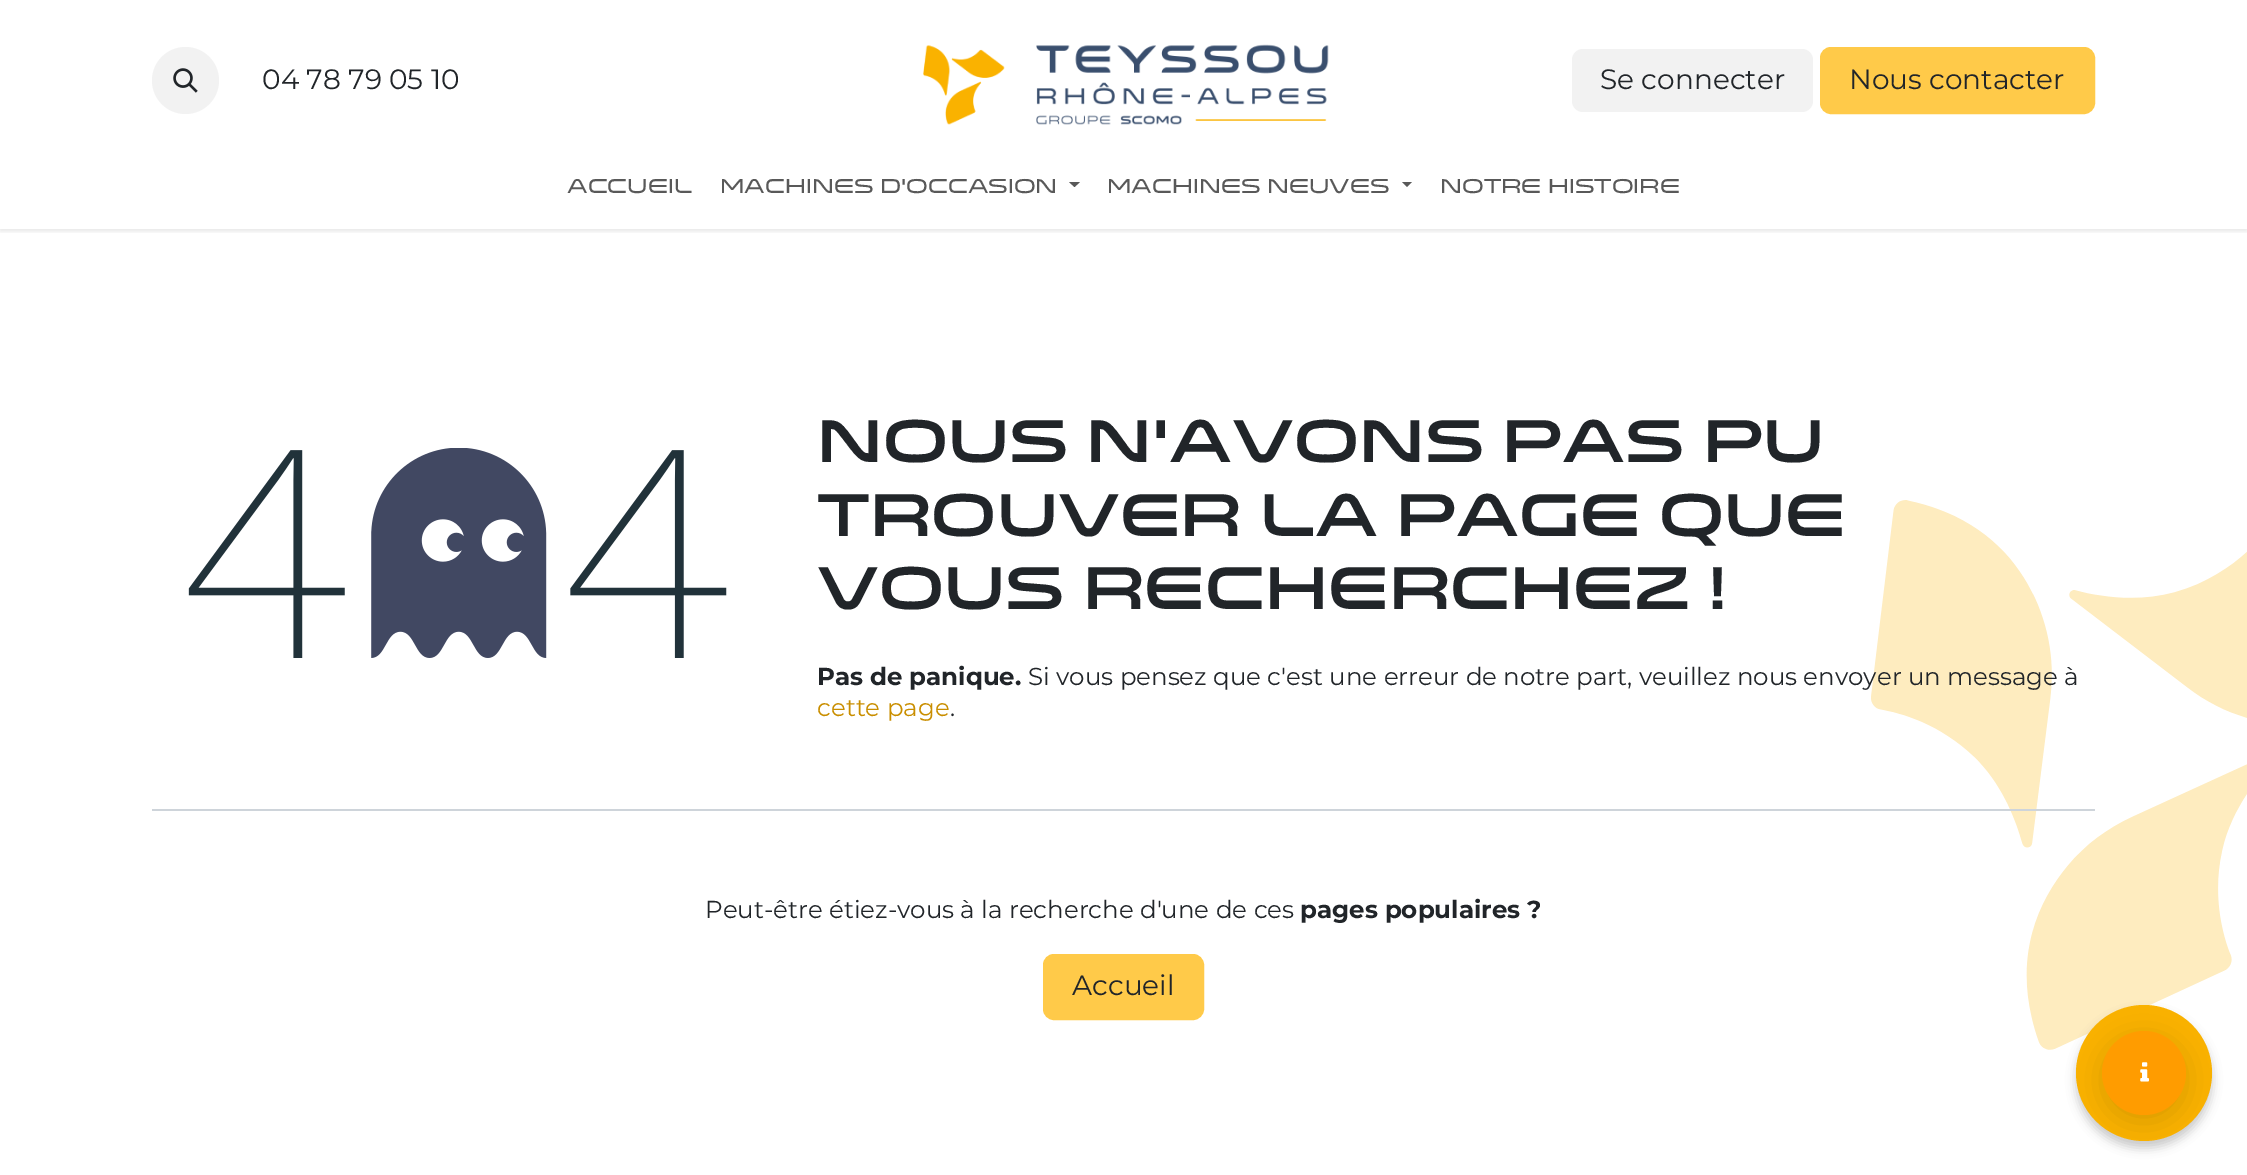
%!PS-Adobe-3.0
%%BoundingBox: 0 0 2247 1175
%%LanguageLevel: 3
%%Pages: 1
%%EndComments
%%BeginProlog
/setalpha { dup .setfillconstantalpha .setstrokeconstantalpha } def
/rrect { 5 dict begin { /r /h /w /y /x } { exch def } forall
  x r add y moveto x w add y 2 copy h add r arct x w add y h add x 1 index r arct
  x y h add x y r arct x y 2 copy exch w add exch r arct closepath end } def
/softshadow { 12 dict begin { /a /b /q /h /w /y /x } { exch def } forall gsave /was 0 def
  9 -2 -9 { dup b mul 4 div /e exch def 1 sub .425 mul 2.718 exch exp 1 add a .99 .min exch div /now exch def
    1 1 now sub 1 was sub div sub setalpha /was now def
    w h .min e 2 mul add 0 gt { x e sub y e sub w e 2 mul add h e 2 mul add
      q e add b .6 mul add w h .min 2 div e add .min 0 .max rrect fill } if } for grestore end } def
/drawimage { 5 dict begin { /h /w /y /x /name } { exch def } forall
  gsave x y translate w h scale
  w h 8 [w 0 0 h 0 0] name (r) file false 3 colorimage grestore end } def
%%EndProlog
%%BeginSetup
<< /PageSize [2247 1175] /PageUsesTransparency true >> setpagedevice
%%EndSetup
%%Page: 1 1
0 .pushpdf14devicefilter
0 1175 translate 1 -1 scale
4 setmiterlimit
1 setgray
0 0 2247 1175 rectfill
(images/1.raw) 1871 500 376 550 drawimage
gsave
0 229 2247 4 rectclip
0 setgray
0 2 2247 229 0 2.5 0.1 softshadow
grestore
0.949 setgray
newpath 185.5 80.5 33.5 0 360 arc closepath fill
(images/2.raw) 173 68 25 25 drawimage
(images/3.raw) 923 44 406 81 drawimage
1572 49 241 63 11 rrect fill
1 0.792 0.286 setrgbcolor
1821 48 273 65 10 rrect gsave fill grestore
2 setlinewidth
stroke
0.349 setgray
newpath 1069 182 moveto 1080 182 lineto 1074.5 187 lineto closepath fill
newpath 1402 182 moveto 1412 182 lineto 1407 187 lineto closepath fill
(images/4.raw) 188 448 539 210 drawimage
0.808 0.831 0.855 setrgbcolor
152 809 1943 2 rectfill
1 0.792 0.286 setrgbcolor
1044 955 159 64 10 rrect gsave fill grestore
stroke
0 setgray
2076 1012 136 136 68 5 0.2 softshadow
0.98 0.698 0 setrgbcolor
newpath 2144 1073 68 0 360 arc closepath fill
0 setgray
2102 1038 84 84 42 14 0.12 softshadow
1 0.612 0 setrgbcolor
newpath 2144 1073 42 0 360 arc closepath fill
(images/5.raw) 2140 1062 9 20 drawimage
/Montserrat-Regular [28 0 0 -28 0 0] selectfont
0.129 0.145 0.161 setrgbcolor
262 89 moveto (04 78 79 05 10) show
1600 89 moveto (Se connecter) show
1849 89 moveto (Nous contacter) show
/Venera-Bold [20.4 0 0 -20.4 0 0] selectfont
0.349 setgray
567 193 moveto (Accueil) show
720 193 moveto (Machines d'occasion) show
1107 193 moveto (Machines neuves) show
1440 193 moveto (Notre histoire) show
/Venera-Black [61.25 0 0 -61.25 0 0] selectfont
0.129 0.145 0.161 setrgbcolor
817 462 moveto (Nous n'avons pas pu) show
817 536 moveto (trouver la page que) show
817 609 moveto (vous recherchez !) show
/Montserrat-Bold [24.5 0 0 -24.5 0 0] selectfont
817 685 moveto (Pas de panique.) show
/Montserrat-Regular [24.5 0 0 -24.5 0 0] selectfont
1028 685 moveto (Si vous pensez que c'est une erreur de notre part, veuillez nous envoyer un message à) show
0.788 0.557 0 setrgbcolor
817 716 moveto (cette page) show
0.129 0.145 0.161 setrgbcolor
950 716 moveto (.) show
705 918 moveto (Peut-être étiez-vous à la recherche d'une de ces) show
/Montserrat-Bold [24.5 0 0 -24.5 0 0] selectfont
1300 918 moveto (pages populaires ?) show
/Montserrat-Regular [28 0 0 -28 0 0] selectfont
1072 995 moveto (Accueil) show
.poppdf14devicefilter showpage
%%EOF
